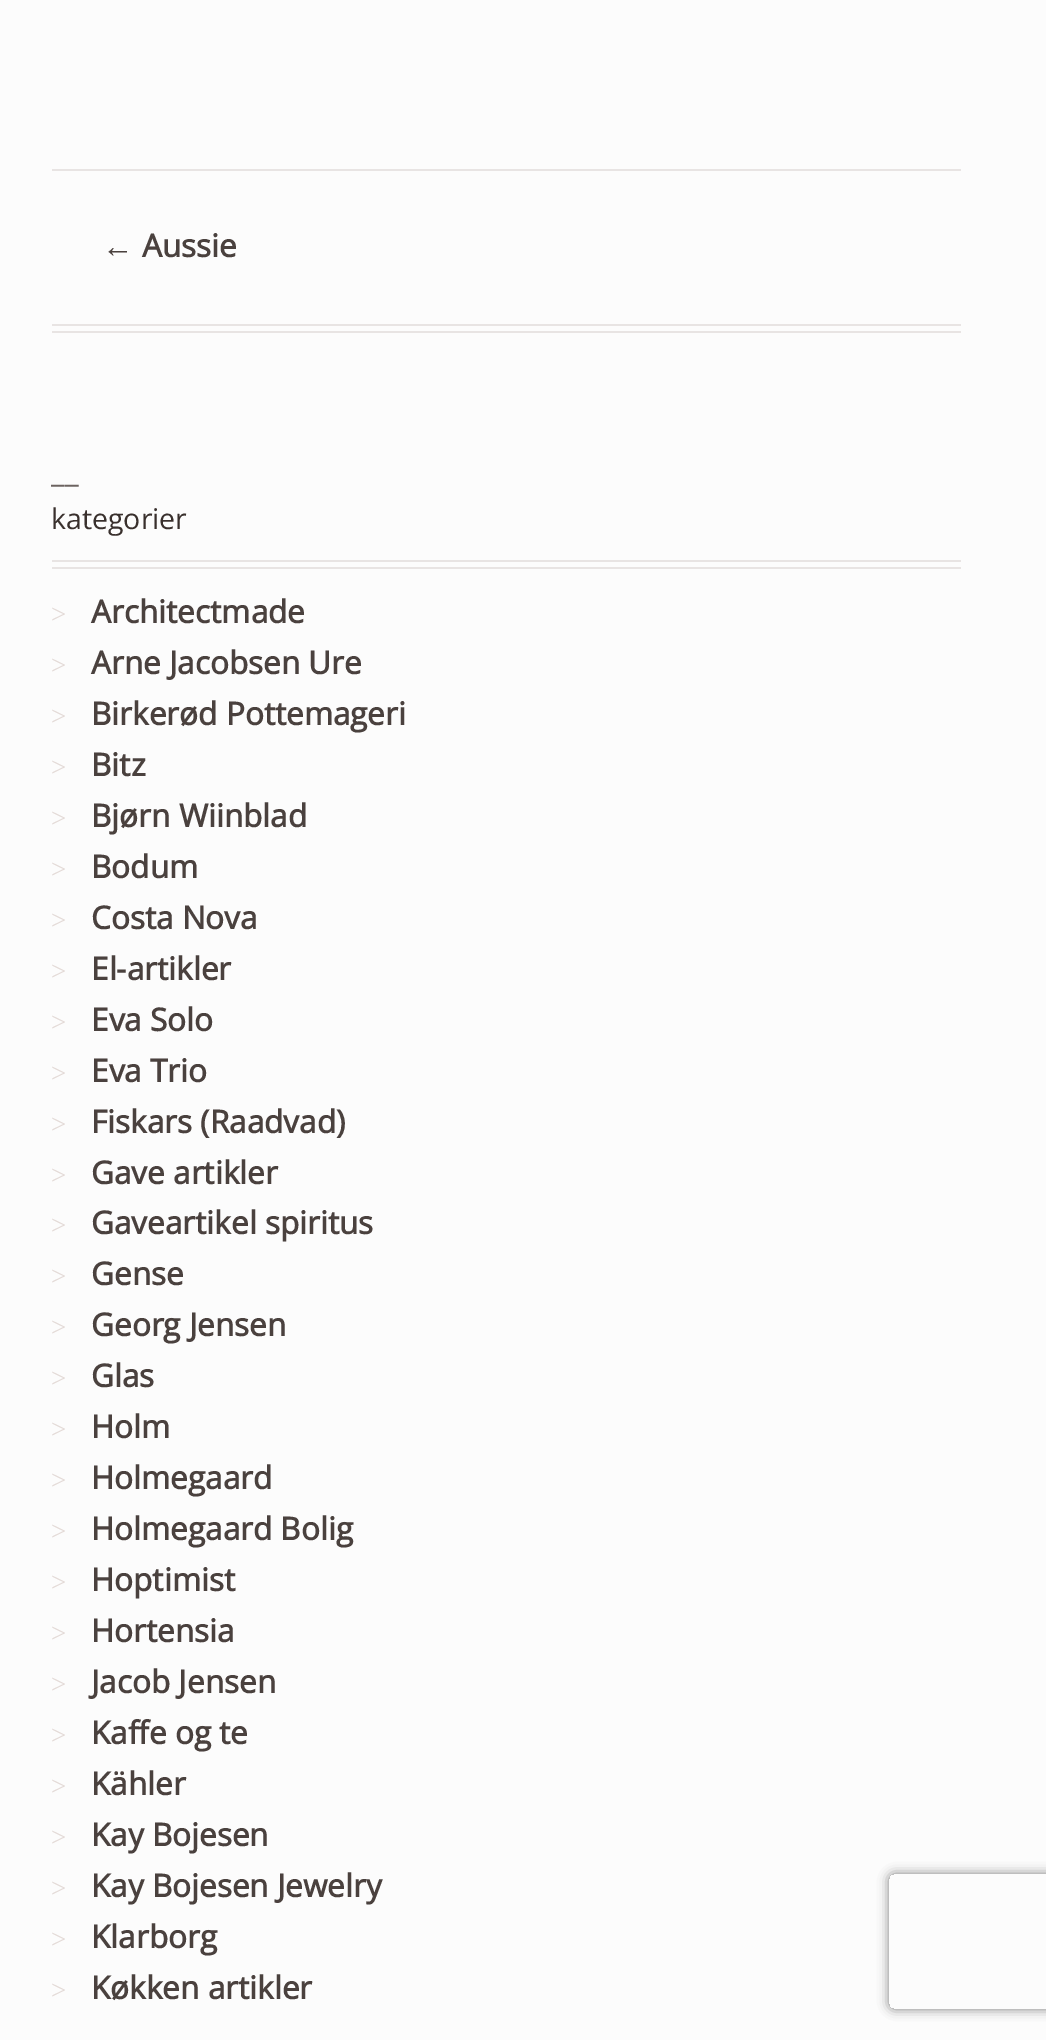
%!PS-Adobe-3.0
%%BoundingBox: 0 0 1046 2040
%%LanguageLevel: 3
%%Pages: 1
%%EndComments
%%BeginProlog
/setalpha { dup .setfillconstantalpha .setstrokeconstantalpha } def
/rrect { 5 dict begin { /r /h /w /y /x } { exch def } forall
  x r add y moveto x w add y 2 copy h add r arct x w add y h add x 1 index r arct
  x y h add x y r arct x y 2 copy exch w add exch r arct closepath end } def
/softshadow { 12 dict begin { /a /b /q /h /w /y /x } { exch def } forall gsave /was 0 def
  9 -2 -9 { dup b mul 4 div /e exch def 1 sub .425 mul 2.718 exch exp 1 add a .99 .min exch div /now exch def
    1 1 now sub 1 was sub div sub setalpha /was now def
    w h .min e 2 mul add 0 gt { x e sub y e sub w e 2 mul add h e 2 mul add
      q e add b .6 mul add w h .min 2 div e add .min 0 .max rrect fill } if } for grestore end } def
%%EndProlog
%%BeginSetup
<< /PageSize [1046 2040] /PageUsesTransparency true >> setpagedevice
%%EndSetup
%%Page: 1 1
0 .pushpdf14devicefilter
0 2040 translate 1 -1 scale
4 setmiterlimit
0.988 setgray
0 0 1046 2040 rectfill
0.91 0.894 0.89 setrgbcolor
52 169 909 2 rectfill
52 324 909 2 rectfill
52 331 909 2 rectfill
52 560 909 2 rectfill
52 567 909 2 rectfill
gsave
newpath 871 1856 moveto 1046 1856 lineto 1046 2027 lineto 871 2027 lineto closepath 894 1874 moveto 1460 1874 lineto 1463 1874 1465 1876 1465 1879 curveto 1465 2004 lineto 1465 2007 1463 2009 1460 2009 curveto 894 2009 lineto 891 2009 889 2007 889 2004 curveto 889 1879 lineto 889 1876 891 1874 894 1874 curveto closepath eoclip newpath
0.502 setgray
889 1874 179 135 5 5.5 1 softshadow
grestore
/LiberationSans-Bold [31.5 0 0 -31.5 0 0] selectfont
0.29 0.255 0.243 setrgbcolor
102 257 moveto (←) show
/OpenSans-Bold [31.5 0 0 -31.5 0 0] selectfont
142 257 moveto (Aussie) show
/OpenSans-Regular [31.5 0 0 -31.5 0 0] selectfont
0.424 0.388 0.376 setrgbcolor
51 482 moveto (__) show
/OpenSans-Regular [28.5 0 0 -28.5 0 0] selectfont
0.224 0.188 0.176 setrgbcolor
51 529 moveto (kategorier) show
/LiberationSerif-Regular [27 0 0 -27 0 0] selectfont
0.89 0.855 0.843 setrgbcolor
51 623 moveto (>) show
/OpenSans-Bold [31.5 0 0 -31.5 0 0] selectfont
0.29 0.255 0.243 setrgbcolor
91 623 moveto (Architectmade) show
/LiberationSerif-Regular [27 0 0 -27 0 0] selectfont
0.89 0.855 0.843 setrgbcolor
51 674 moveto (>) show
/OpenSans-Bold [31.5 0 0 -31.5 0 0] selectfont
0.29 0.255 0.243 setrgbcolor
91 674 moveto (Arne Jacobsen Ure) show
/LiberationSerif-Regular [27 0 0 -27 0 0] selectfont
0.89 0.855 0.843 setrgbcolor
51 725 moveto (>) show
/OpenSans-Bold [31.5 0 0 -31.5 0 0] selectfont
0.29 0.255 0.243 setrgbcolor
91 725 moveto (Birkerød Pottemageri) show
/LiberationSerif-Regular [27 0 0 -27 0 0] selectfont
0.89 0.855 0.843 setrgbcolor
51 776 moveto (>) show
/OpenSans-Bold [31.5 0 0 -31.5 0 0] selectfont
0.29 0.255 0.243 setrgbcolor
91 776 moveto (Bitz) show
/LiberationSerif-Regular [27 0 0 -27 0 0] selectfont
0.89 0.855 0.843 setrgbcolor
51 827 moveto (>) show
/OpenSans-Bold [31.5 0 0 -31.5 0 0] selectfont
0.29 0.255 0.243 setrgbcolor
91 827 moveto (Bjørn Wiinblad) show
/LiberationSerif-Regular [27 0 0 -27 0 0] selectfont
0.89 0.855 0.843 setrgbcolor
51 878 moveto (>) show
/OpenSans-Bold [31.5 0 0 -31.5 0 0] selectfont
0.29 0.255 0.243 setrgbcolor
91 878 moveto (Bodum) show
/LiberationSerif-Regular [27 0 0 -27 0 0] selectfont
0.89 0.855 0.843 setrgbcolor
51 929 moveto (>) show
/OpenSans-Bold [31.5 0 0 -31.5 0 0] selectfont
0.29 0.255 0.243 setrgbcolor
91 929 moveto (Costa Nova) show
/LiberationSerif-Regular [27 0 0 -27 0 0] selectfont
0.89 0.855 0.843 setrgbcolor
51 980 moveto (>) show
/OpenSans-Bold [31.5 0 0 -31.5 0 0] selectfont
0.29 0.255 0.243 setrgbcolor
91 980 moveto (El-artikler) show
/LiberationSerif-Regular [27 0 0 -27 0 0] selectfont
0.89 0.855 0.843 setrgbcolor
51 1031 moveto (>) show
/OpenSans-Bold [31.5 0 0 -31.5 0 0] selectfont
0.29 0.255 0.243 setrgbcolor
91 1031 moveto (Eva Solo) show
/LiberationSerif-Regular [27 0 0 -27 0 0] selectfont
0.89 0.855 0.843 setrgbcolor
51 1082 moveto (>) show
/OpenSans-Bold [31.5 0 0 -31.5 0 0] selectfont
0.29 0.255 0.243 setrgbcolor
91 1082 moveto (Eva Trio) show
/LiberationSerif-Regular [27 0 0 -27 0 0] selectfont
0.89 0.855 0.843 setrgbcolor
51 1133 moveto (>) show
/OpenSans-Bold [31.5 0 0 -31.5 0 0] selectfont
0.29 0.255 0.243 setrgbcolor
91 1133 moveto (Fiskars \(Raadvad\)) show
/LiberationSerif-Regular [27 0 0 -27 0 0] selectfont
0.89 0.855 0.843 setrgbcolor
51 1184 moveto (>) show
/OpenSans-Bold [31.5 0 0 -31.5 0 0] selectfont
0.29 0.255 0.243 setrgbcolor
91 1184 moveto (Gave artikler) show
/LiberationSerif-Regular [27 0 0 -27 0 0] selectfont
0.89 0.855 0.843 setrgbcolor
51 1234 moveto (>) show
/OpenSans-Bold [31.5 0 0 -31.5 0 0] selectfont
0.29 0.255 0.243 setrgbcolor
91 1234 moveto (Gaveartikel spiritus) show
/LiberationSerif-Regular [27 0 0 -27 0 0] selectfont
0.89 0.855 0.843 setrgbcolor
51 1285 moveto (>) show
/OpenSans-Bold [31.5 0 0 -31.5 0 0] selectfont
0.29 0.255 0.243 setrgbcolor
91 1285 moveto (Gense) show
/LiberationSerif-Regular [27 0 0 -27 0 0] selectfont
0.89 0.855 0.843 setrgbcolor
51 1336 moveto (>) show
/OpenSans-Bold [31.5 0 0 -31.5 0 0] selectfont
0.29 0.255 0.243 setrgbcolor
91 1336 moveto (Georg Jensen) show
/LiberationSerif-Regular [27 0 0 -27 0 0] selectfont
0.89 0.855 0.843 setrgbcolor
51 1387 moveto (>) show
/OpenSans-Bold [31.5 0 0 -31.5 0 0] selectfont
0.29 0.255 0.243 setrgbcolor
91 1387 moveto (Glas) show
/LiberationSerif-Regular [27 0 0 -27 0 0] selectfont
0.89 0.855 0.843 setrgbcolor
51 1438 moveto (>) show
/OpenSans-Bold [31.5 0 0 -31.5 0 0] selectfont
0.29 0.255 0.243 setrgbcolor
91 1438 moveto (Holm) show
/LiberationSerif-Regular [27 0 0 -27 0 0] selectfont
0.89 0.855 0.843 setrgbcolor
51 1489 moveto (>) show
/OpenSans-Bold [31.5 0 0 -31.5 0 0] selectfont
0.29 0.255 0.243 setrgbcolor
91 1489 moveto (Holmegaard) show
/LiberationSerif-Regular [27 0 0 -27 0 0] selectfont
0.89 0.855 0.843 setrgbcolor
51 1540 moveto (>) show
/OpenSans-Bold [31.5 0 0 -31.5 0 0] selectfont
0.29 0.255 0.243 setrgbcolor
91 1540 moveto (Holmegaard Bolig) show
/LiberationSerif-Regular [27 0 0 -27 0 0] selectfont
0.89 0.855 0.843 setrgbcolor
51 1591 moveto (>) show
/OpenSans-Bold [31.5 0 0 -31.5 0 0] selectfont
0.29 0.255 0.243 setrgbcolor
91 1591 moveto (Hoptimist) show
/LiberationSerif-Regular [27 0 0 -27 0 0] selectfont
0.89 0.855 0.843 setrgbcolor
51 1642 moveto (>) show
/OpenSans-Bold [31.5 0 0 -31.5 0 0] selectfont
0.29 0.255 0.243 setrgbcolor
91 1642 moveto (Hortensia) show
/LiberationSerif-Regular [27 0 0 -27 0 0] selectfont
0.89 0.855 0.843 setrgbcolor
51 1693 moveto (>) show
/OpenSans-Bold [31.5 0 0 -31.5 0 0] selectfont
0.29 0.255 0.243 setrgbcolor
91 1693 moveto (Jacob Jensen) show
/LiberationSerif-Regular [27 0 0 -27 0 0] selectfont
0.89 0.855 0.843 setrgbcolor
51 1744 moveto (>) show
/OpenSans-Bold [31.5 0 0 -31.5 0 0] selectfont
0.29 0.255 0.243 setrgbcolor
91 1744 moveto (Kaffe og te) show
/LiberationSerif-Regular [27 0 0 -27 0 0] selectfont
0.89 0.855 0.843 setrgbcolor
51 1795 moveto (>) show
/OpenSans-Bold [31.5 0 0 -31.5 0 0] selectfont
0.29 0.255 0.243 setrgbcolor
91 1795 moveto (Kähler) show
/LiberationSerif-Regular [27 0 0 -27 0 0] selectfont
0.89 0.855 0.843 setrgbcolor
51 1846 moveto (>) show
/OpenSans-Bold [31.5 0 0 -31.5 0 0] selectfont
0.29 0.255 0.243 setrgbcolor
91 1846 moveto (Kay Bojesen) show
/LiberationSerif-Regular [27 0 0 -27 0 0] selectfont
0.89 0.855 0.843 setrgbcolor
51 1897 moveto (>) show
/OpenSans-Bold [31.5 0 0 -31.5 0 0] selectfont
0.29 0.255 0.243 setrgbcolor
91 1897 moveto (Kay Bojesen Jewelry) show
/LiberationSerif-Regular [27 0 0 -27 0 0] selectfont
0.89 0.855 0.843 setrgbcolor
51 1948 moveto (>) show
/OpenSans-Bold [31.5 0 0 -31.5 0 0] selectfont
0.29 0.255 0.243 setrgbcolor
91 1948 moveto (Klarborg) show
/LiberationSerif-Regular [27 0 0 -27 0 0] selectfont
0.89 0.855 0.843 setrgbcolor
51 1999 moveto (>) show
/OpenSans-Bold [31.5 0 0 -31.5 0 0] selectfont
0.29 0.255 0.243 setrgbcolor
91 1999 moveto (Køkken artikler) show
.poppdf14devicefilter showpage
%%EOF
